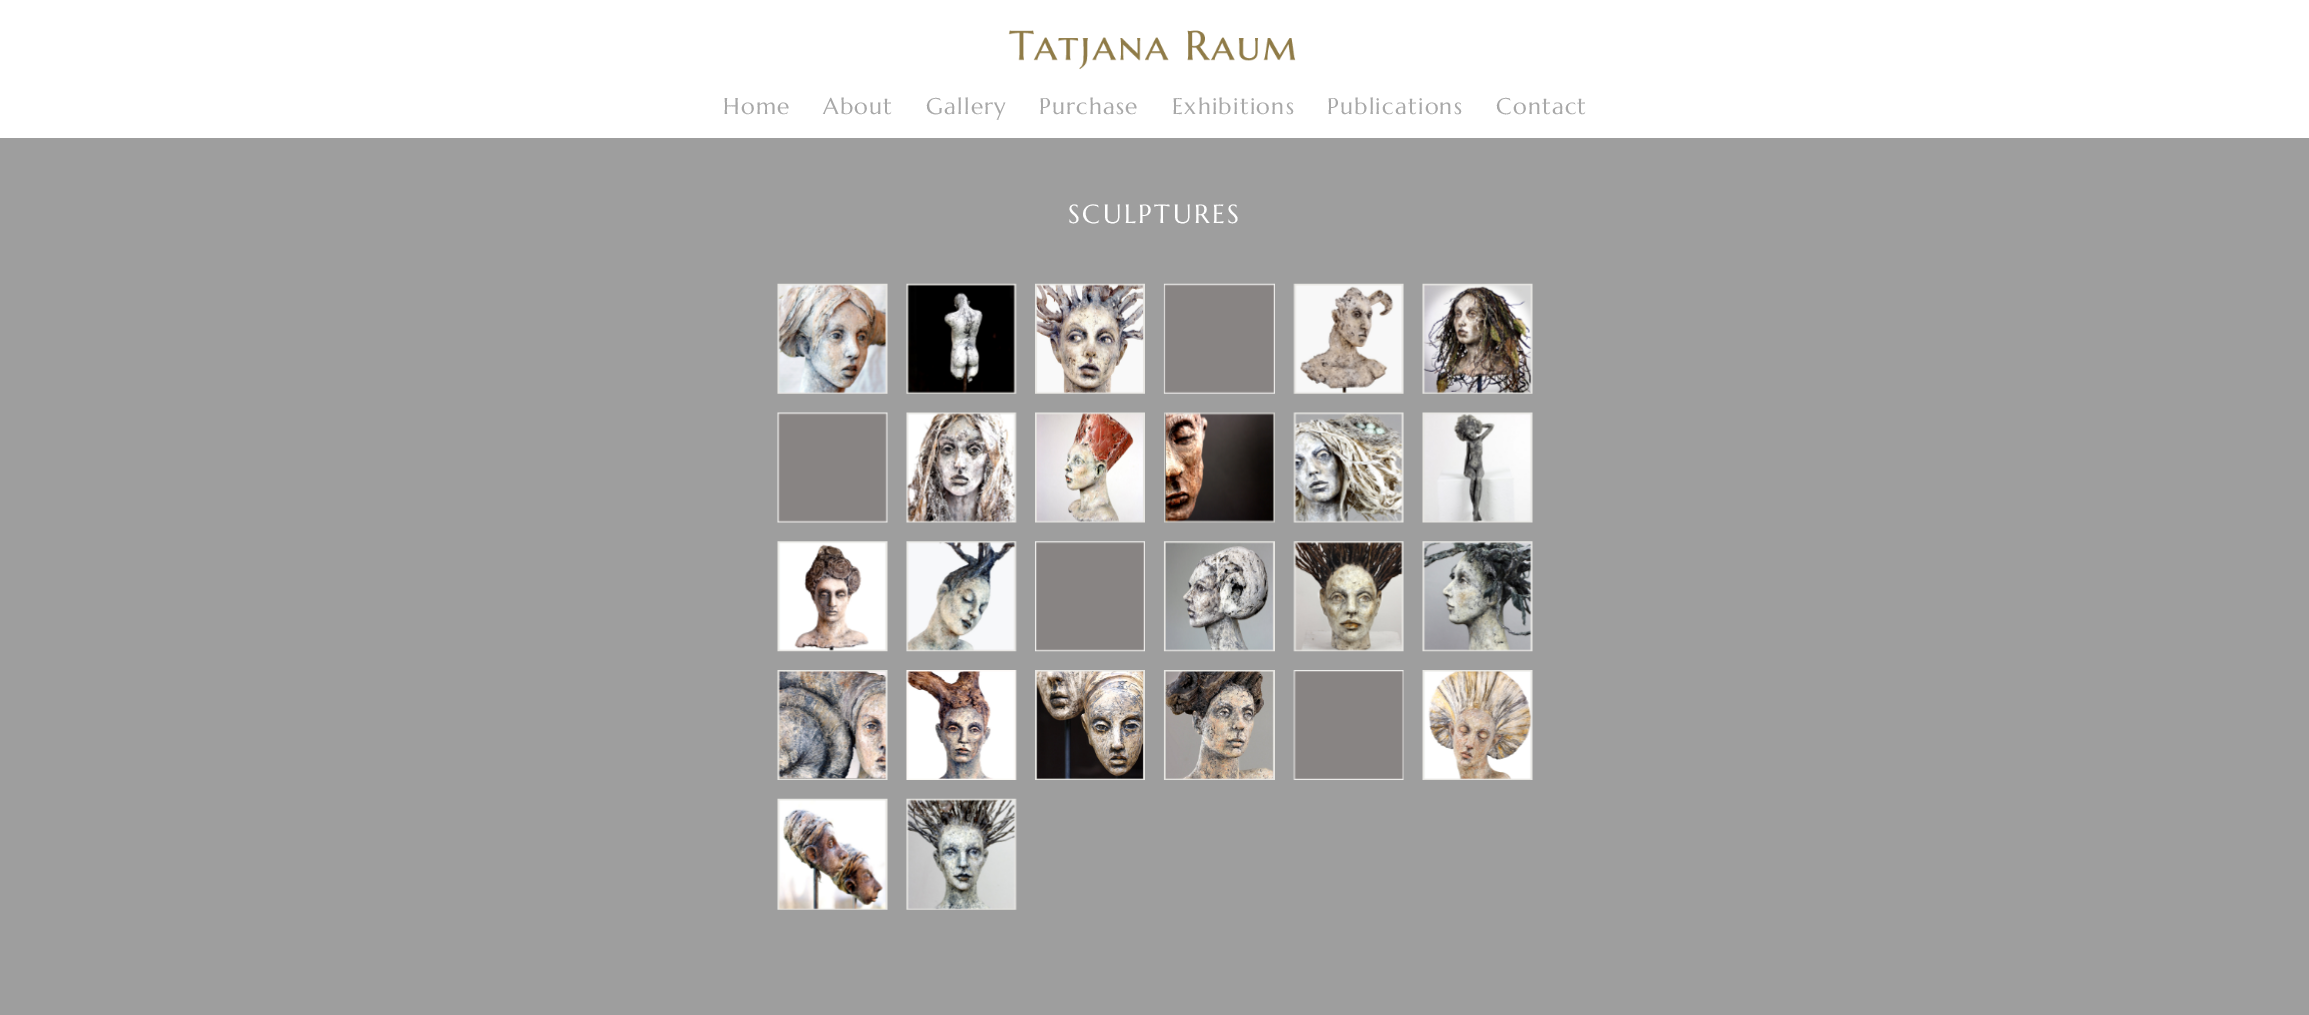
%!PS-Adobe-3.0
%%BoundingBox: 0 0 2309 1015
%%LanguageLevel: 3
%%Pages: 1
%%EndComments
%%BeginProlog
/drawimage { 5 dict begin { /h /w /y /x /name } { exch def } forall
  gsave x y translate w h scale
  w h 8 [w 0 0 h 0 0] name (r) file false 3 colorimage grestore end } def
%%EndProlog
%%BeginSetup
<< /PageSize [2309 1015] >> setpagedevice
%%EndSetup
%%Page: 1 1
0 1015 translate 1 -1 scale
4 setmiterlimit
1 setgray
0 0 2309 1015 rectfill
(images/1.raw) 1008 30 288 40 drawimage
0.62 setgray
0 138 2309 877 rectfill
(images/2.raw) 777 283 111 111 drawimage
(images/3.raw) 906 283 111 111 drawimage
(images/4.raw) 1035 283 110 111 drawimage
(images/5.raw) 1163 283 112 111 drawimage
(images/6.raw) 1293 283 111 111 drawimage
(images/7.raw) 1422 283 111 111 drawimage
(images/8.raw) 777 412 111 111 drawimage
(images/9.raw) 906 412 111 111 drawimage
(images/10.raw) 1035 412 110 111 drawimage
(images/11.raw) 1164 412 111 111 drawimage
(images/12.raw) 1293 412 111 111 drawimage
(images/13.raw) 1422 412 111 111 drawimage
(images/14.raw) 777 541 111 111 drawimage
(images/15.raw) 906 541 111 111 drawimage
(images/16.raw) 1035 541 110 111 drawimage
(images/17.raw) 1163 541 112 111 drawimage
(images/18.raw) 1293 541 111 111 drawimage
(images/19.raw) 1422 541 111 111 drawimage
(images/20.raw) 777 670 111 110 drawimage
(images/21.raw) 906 670 111 110 drawimage
(images/22.raw) 1035 670 110 110 drawimage
(images/23.raw) 1163 670 112 110 drawimage
(images/24.raw) 1293 670 111 110 drawimage
(images/25.raw) 1422 670 111 110 drawimage
(images/26.raw) 777 798 111 112 drawimage
(images/27.raw) 906 798 111 112 drawimage
/Marcellus-Regular [22.75 0 0 -22.75 0 0] selectfont
0.659 setgray
723 114 moveto 1.25 0 (Home) ashow
823 114 moveto 1.25 0 (About) ashow
926 114 moveto 1.25 0 (Gallery) ashow
1039 114 moveto 1.25 0 (Purchase) ashow
1172 114 moveto 1.25 0 (Exhibitions) ashow
1327 114 moveto 1.25 0 (Publications) ashow
1496 114 moveto 1.25 0 (Contact) ashow
/Marcellus-Regular [26.25 0 0 -26.25 0 0] selectfont
1 setgray
1068 223 moveto 2.5 0 (SCULPTURES) ashow
showpage
%%EOF
